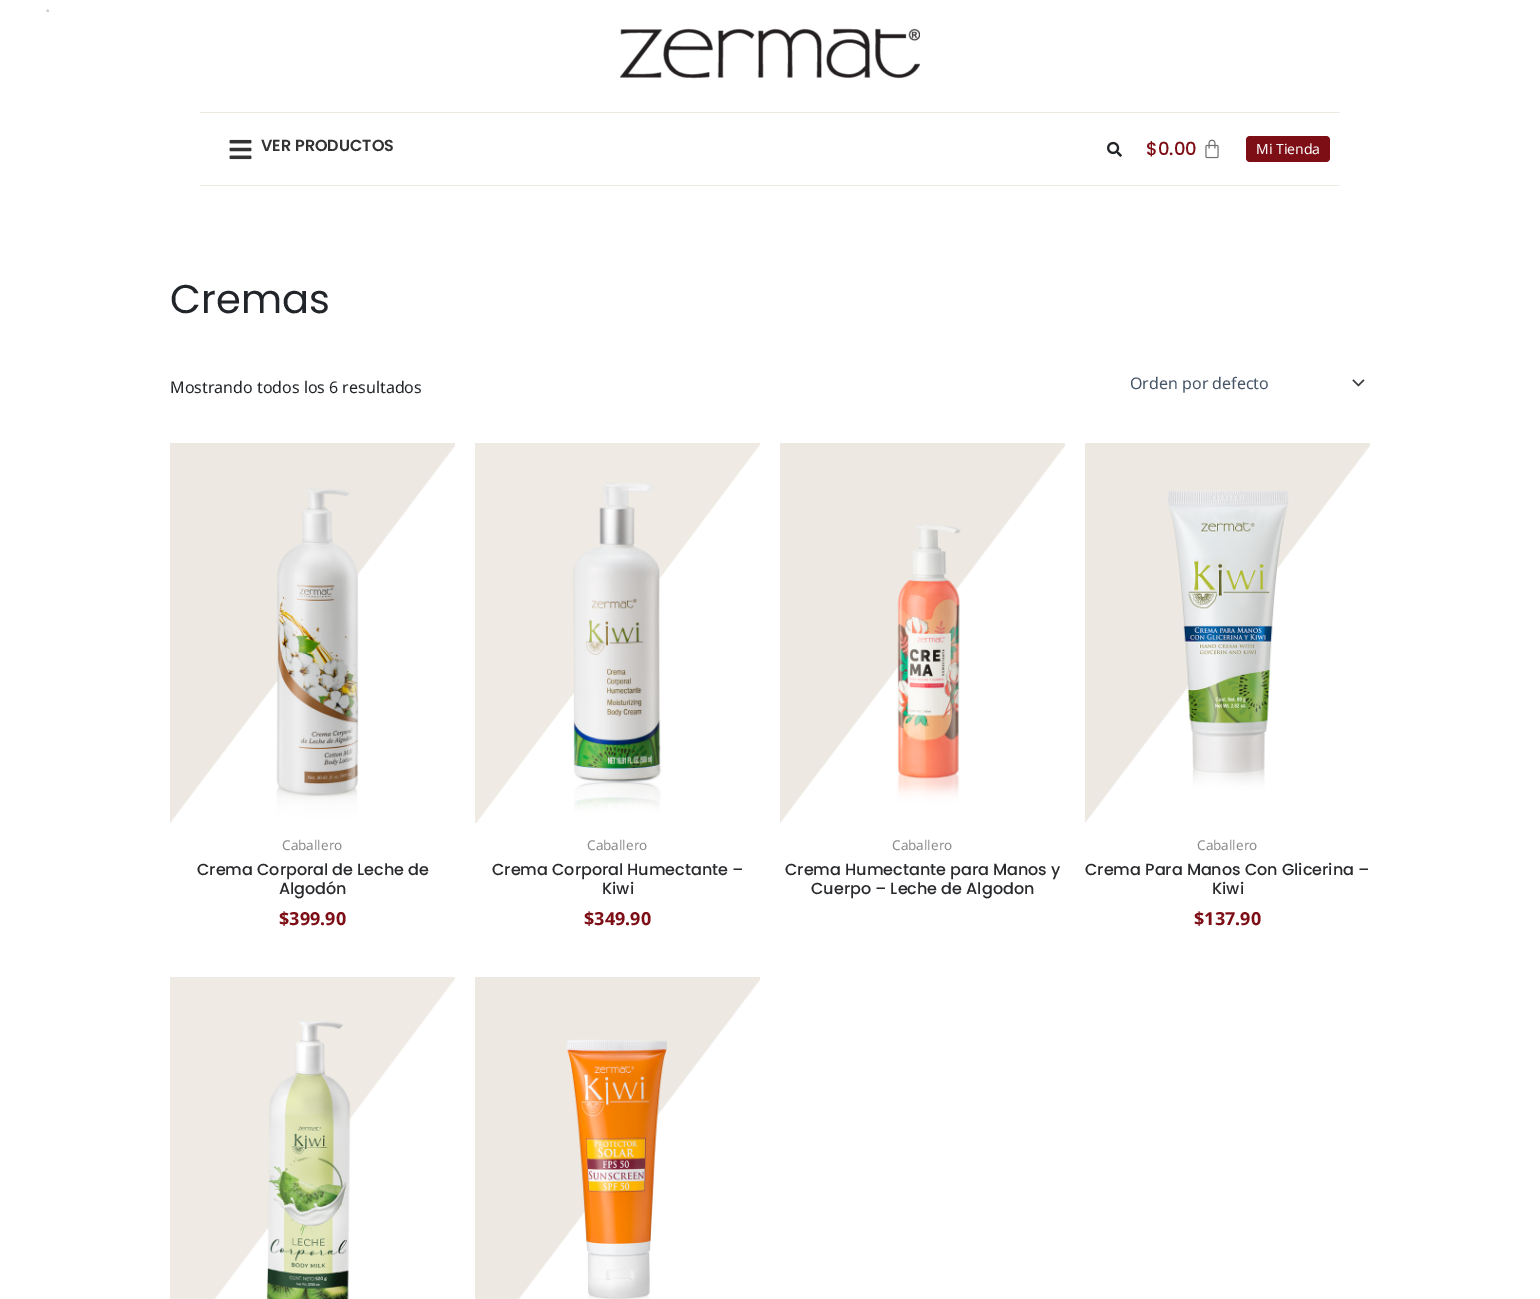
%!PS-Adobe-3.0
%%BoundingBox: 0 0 1540 1299
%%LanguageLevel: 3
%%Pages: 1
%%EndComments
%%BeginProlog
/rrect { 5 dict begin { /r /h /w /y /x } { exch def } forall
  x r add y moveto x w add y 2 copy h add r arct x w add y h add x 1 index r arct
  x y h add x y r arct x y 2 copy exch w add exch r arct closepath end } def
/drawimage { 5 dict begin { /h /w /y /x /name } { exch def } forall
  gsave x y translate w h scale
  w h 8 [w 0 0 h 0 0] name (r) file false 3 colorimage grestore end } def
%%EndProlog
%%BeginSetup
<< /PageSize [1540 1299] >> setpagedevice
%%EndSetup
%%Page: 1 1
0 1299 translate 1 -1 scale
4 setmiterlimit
1 setgray
0 0 1540 1299 rectfill
(images/1.raw) 620 28 300 51 drawimage
0.933 0.918 0.89 setrgbcolor
200 112 1140 1 rectfill
(images/2.raw) 229 139 23 21 drawimage
(images/3.raw) 1107 141 15 16 drawimage
(images/4.raw) 1205 139 14 20 drawimage
0.494 0.055 0.086 setrgbcolor
1246 136 84 26 4 rrect fill
0.933 0.918 0.89 setrgbcolor
200 185 1140 1 rectfill
(images/5.raw) 1352 379 13 8 drawimage
(images/6.raw) 170 443 285 380 drawimage
(images/7.raw) 475 443 285 380 drawimage
(images/8.raw) 780 443 285 380 drawimage
(images/9.raw) 1085 443 285 380 drawimage
(images/10.raw) 170 977 285 322 drawimage
(images/11.raw) 475 977 285 322 drawimage
/LiberationSans-Regular [10 0 0 -10 0 0] selectfont
0.788 setgray
46 14 moveto (•) show
/Poppins-SemiBold [16 0 0 -16 0 0] selectfont
0.2 setgray
261 151 moveto (VER PRODUCTOS) show
/Poppins-Medium [18 0 0 -18 0 0] selectfont
0.494 0.055 0.086 setrgbcolor
1146 155 moveto ($0.00) show
/NotoSans-Regular [14 0 0 -14 0 0] selectfont
1 setgray
1256 154 moveto (Mi Tienda) show
/Poppins-Regular [40 0 0 -40 0 0] selectfont
0.129 0.145 0.161 setrgbcolor
170 313 moveto (Cremas) show
/NotoSans-Regular [16 0 0 -16 0 0] selectfont
170 393 moveto (Mostrando todos los 6 resultados) show
0.278 0.333 0.412 setrgbcolor
1130 389 moveto (Orden por defecto) show
/NotoSans-Regular [13.5 0 0 -13.5 0 0] selectfont
0.533 0.541 0.549 setrgbcolor
282 850 moveto (Caballero) show
/Poppins-Medium [16 0 0 -16 0 0] selectfont
0.161 0.165 0.176 setrgbcolor
197 875 moveto (Crema Corporal de Leche de) show
279 894 moveto (Algodón) show
/NotoSans-Bold [18 0 0 -18 0 0] selectfont
0.494 0.055 0.086 setrgbcolor
279 925 moveto ($399.90) show
/NotoSans-Regular [13.5 0 0 -13.5 0 0] selectfont
0.533 0.541 0.549 setrgbcolor
587 850 moveto (Caballero) show
/Poppins-Medium [16 0 0 -16 0 0] selectfont
0.161 0.165 0.176 setrgbcolor
492 875 moveto (Crema Corporal Humectante –) show
602 894 moveto (Kiwi) show
/NotoSans-Bold [18 0 0 -18 0 0] selectfont
0.494 0.055 0.086 setrgbcolor
584 925 moveto ($349.90) show
/NotoSans-Regular [13.5 0 0 -13.5 0 0] selectfont
0.533 0.541 0.549 setrgbcolor
892 850 moveto (Caballero) show
/Poppins-Medium [16 0 0 -16 0 0] selectfont
0.161 0.165 0.176 setrgbcolor
785 875 moveto (Crema Humectante para Manos y) show
811 894 moveto (Cuerpo – Leche de Algodon) show
/NotoSans-Regular [13.5 0 0 -13.5 0 0] selectfont
0.533 0.541 0.549 setrgbcolor
1197 850 moveto (Caballero) show
/Poppins-Medium [16 0 0 -16 0 0] selectfont
0.161 0.165 0.176 setrgbcolor
1085 875 moveto (Crema Para Manos Con Glicerina –) show
1212 894 moveto (Kiwi) show
/NotoSans-Bold [18 0 0 -18 0 0] selectfont
0.494 0.055 0.086 setrgbcolor
1194 925 moveto ($137.90) show
showpage
%%EOF
